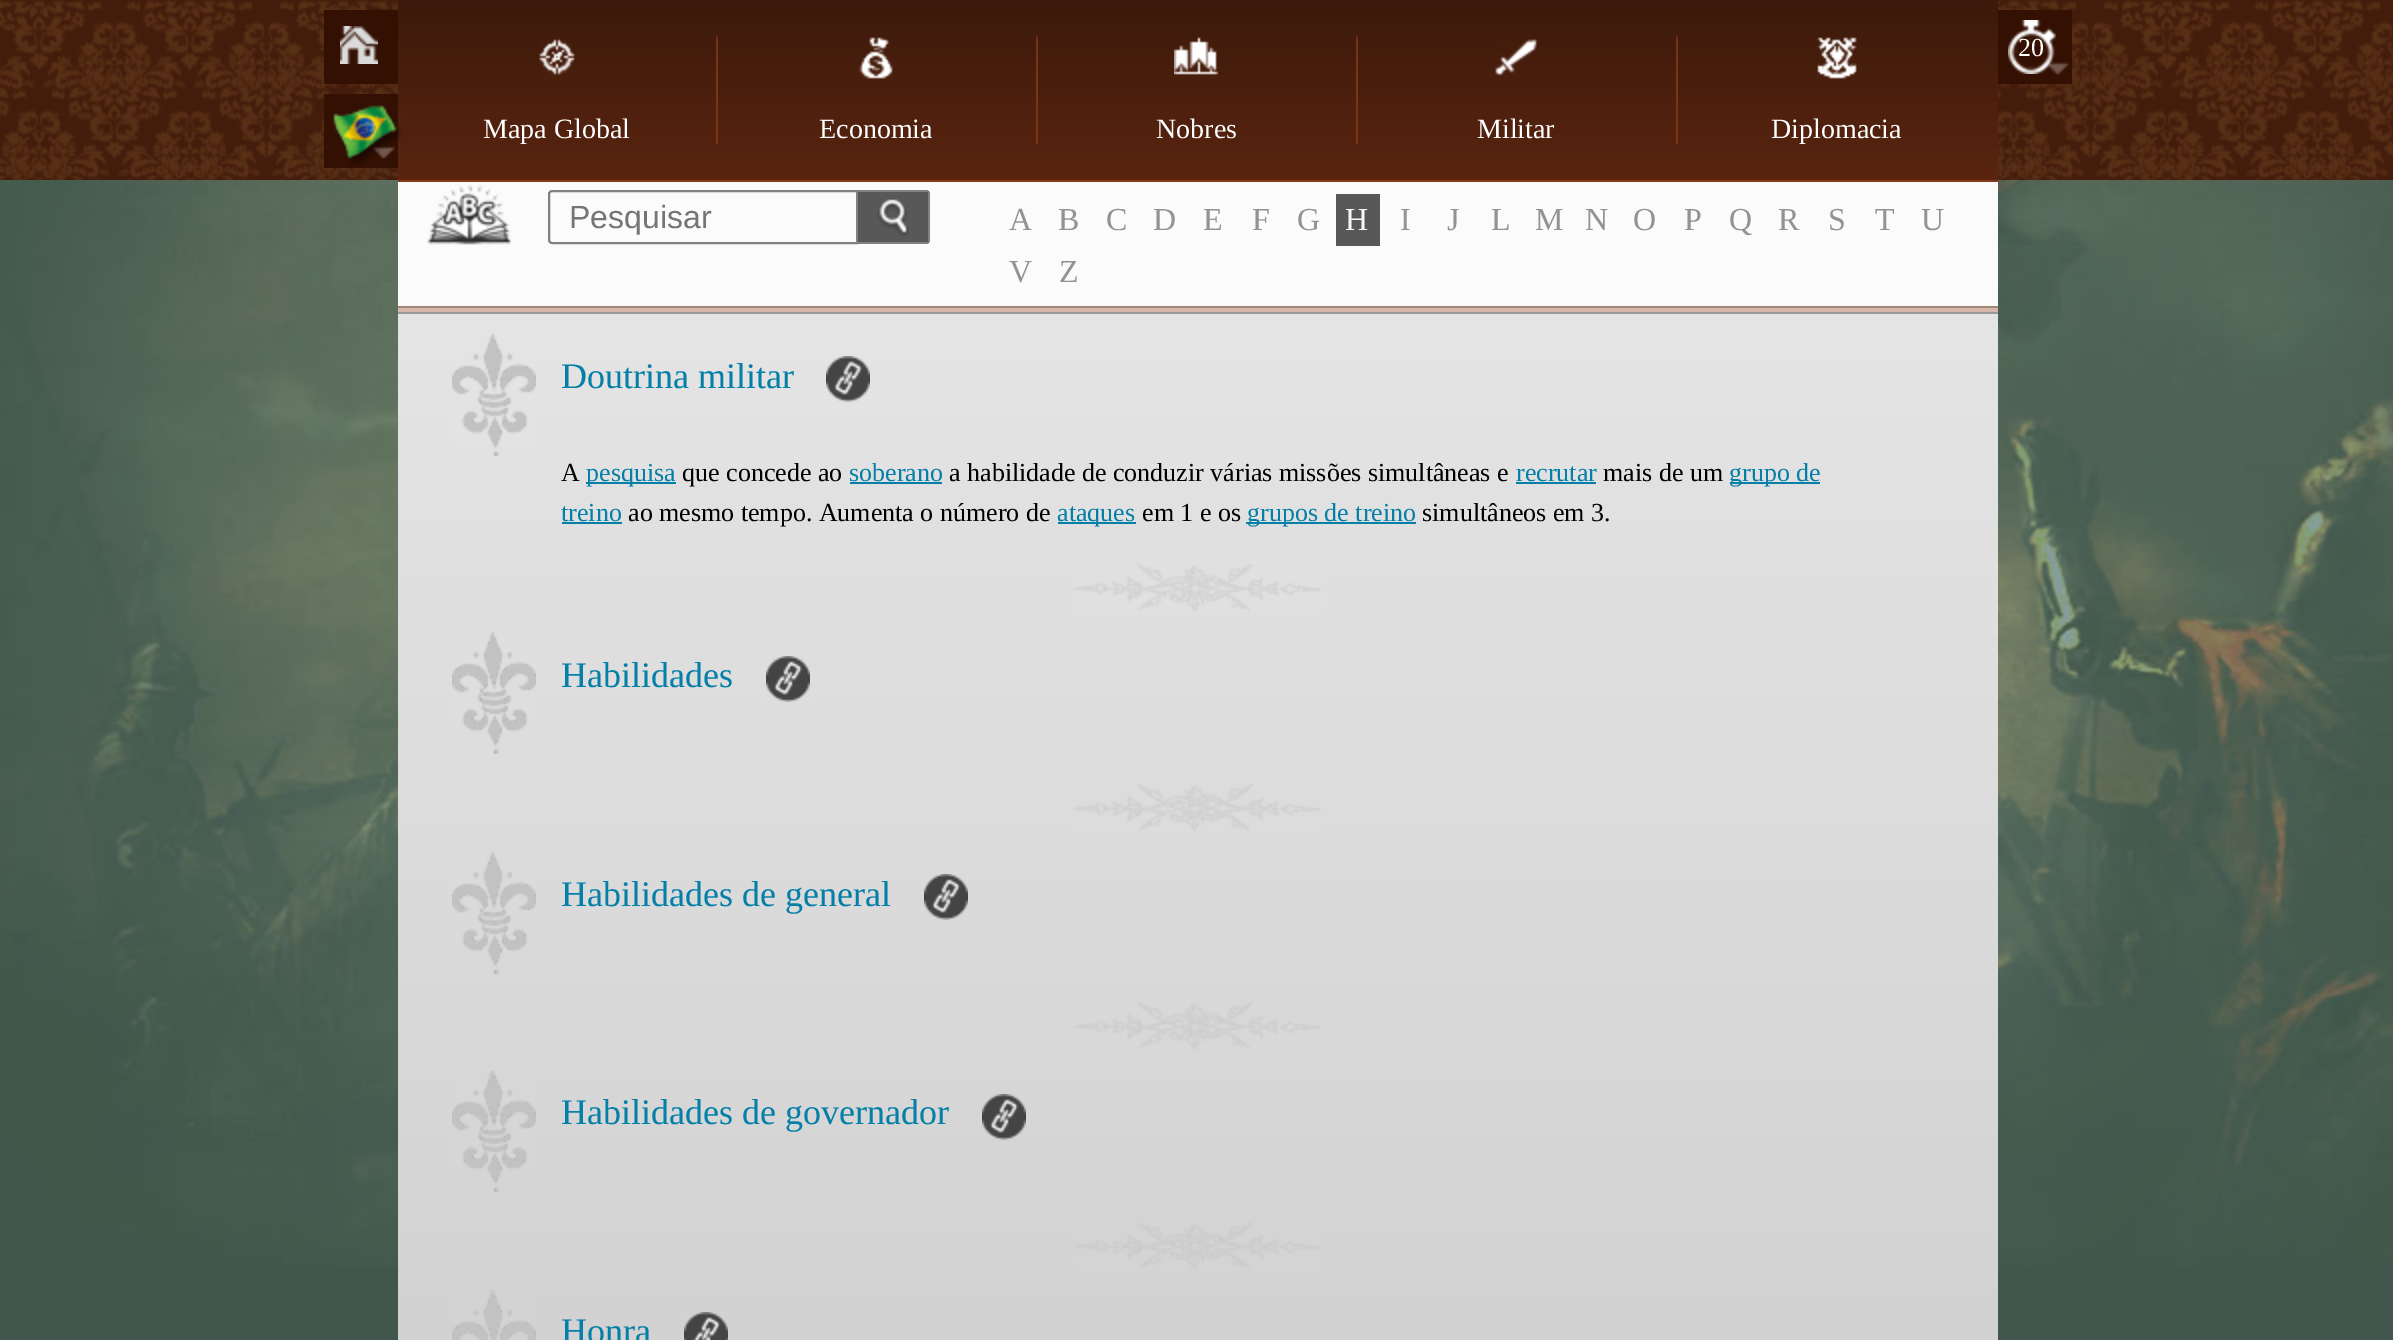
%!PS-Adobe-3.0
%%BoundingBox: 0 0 2393 1340
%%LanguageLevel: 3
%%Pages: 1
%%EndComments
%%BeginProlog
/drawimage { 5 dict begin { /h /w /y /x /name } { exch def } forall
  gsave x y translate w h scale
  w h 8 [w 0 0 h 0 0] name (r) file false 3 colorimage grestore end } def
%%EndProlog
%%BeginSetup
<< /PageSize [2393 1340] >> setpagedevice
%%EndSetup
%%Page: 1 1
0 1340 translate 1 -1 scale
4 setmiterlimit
0.255 0.337 0.302 setrgbcolor
0 0 2393 1340 rectfill
(images/1.raw) 0 180 2393 1087 drawimage
0.267 0.11 0.047 setrgbcolor
0 0 2393 180 rectfill
(images/2.raw) 0 0 2393 180 drawimage
gsave newpath 398 0 moveto 1998 0 lineto 1998 180 lineto 398 180 lineto closepath clip newpath
<< /ShadingType 2 /ColorSpace /DeviceRGB /Coords [1198 0 1198 180] /Extend [true true] /Function << /FunctionType 2 /Domain [0 1] /C0 [0.235 0.098 0.043] /C1 [0.353 0.145 0.063] /N 1 >> >> shfill grestore
0.525 0.216 0.094 setrgbcolor
398 180 1600 2 rectfill
0.204 0.063 0.008 setrgbcolor
324 10 74 74 rectfill
(images/3.raw) 340 26 38 38 drawimage
324 94 74 74 rectfill
(images/4.raw) 372 146 23 13 drawimage
(images/5.raw) 333 105 71 61 drawimage
1998 10 74 74 rectfill
(images/6.raw) 2046 62 23 13 drawimage
(images/7.raw) 2008 20 48 54 drawimage
(images/8.raw) 716 36 2 108 drawimage
(images/9.raw) 539 39 36 36 drawimage
(images/8.raw) 1036 36 2 108 drawimage
(images/10.raw) 859 37 34 42 drawimage
(images/8.raw) 1356 36 2 108 drawimage
(images/11.raw) 1174 37 44 38 drawimage
(images/8.raw) 1676 36 2 108 drawimage
(images/12.raw) 1495 39 43 37 drawimage
(images/13.raw) 1817 37 40 42 drawimage
0.984 setgray
398 182 1600 124 rectfill
(images/14.raw) 427 184 84 61 drawimage
0.506 setgray
2 setlinewidth
newpath 552 191 moveto 857 191 lineto 857 243 lineto 552 243 lineto 550.5 243 549 241.5 549 240 curveto 549 194 lineto 549 192.5 550.5 191 552 191 curveto closepath stroke
0.345 setgray
newpath 858 190 moveto 926 190 lineto 928 190 930 192 930 194 curveto 930 240 lineto 930 242 928 244 926 244 curveto 858 244 lineto closepath fill
(images/15.raw) 877 198 32 38 drawimage
0.506 setgray
858 190 70 2 rectfill
928 192 2 50 rectfill
858 242 70 2 rectfill
0.345 setgray
1336 194 44 52 rectfill
gsave newpath 398 314 moveto 1998 314 lineto 1998 1340 lineto 398 1340 lineto closepath clip newpath
<< /ShadingType 2 /ColorSpace /DeviceRGB /Coords [1198 306 1198 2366] /Extend [true true] /Function << /FunctionType 2 /Domain [0 1] /C0 [0.898 0.898 0.898] /C1 [0.753 0.753 0.753] /N 1 >> >> shfill grestore
0.831 0.714 0.671 setrgbcolor
398 308 1600 4 rectfill
0.631 0.533 0.455 setrgbcolor
398 306 1600 2 rectfill
0.6 setgray
398 312 1600 2 rectfill
(images/16.raw) 1073 564 248 48 drawimage
(images/17.raw) 452 334 84 122 drawimage
(images/18.raw) 826 356 44 46 drawimage
0.016 0.498 0.655 setrgbcolor
586 482 90 2 rectfill
850 482 92 2 rectfill
1516 482 80 2 rectfill
1730 482 90 2 rectfill
562 522 60 2 rectfill
1058 522 78 2 rectfill
1246 522 170 2 rectfill
(images/19.raw) 1073 784 248 48 drawimage
(images/20.raw) 452 632 84 122 drawimage
(images/21.raw) 766 656 44 46 drawimage
(images/22.raw) 1073 1002 248 48 drawimage
(images/23.raw) 452 852 84 122 drawimage
(images/24.raw) 924 874 44 46 drawimage
(images/25.raw) 1074 1222 246 48 drawimage
(images/26.raw) 452 1070 84 122 drawimage
(images/27.raw) 982 1094 44 46 drawimage
(images/28.raw) 452 1290 84 50 drawimage
(images/29.raw) 684 1312 44 28 drawimage
/LiberationSerif-Regular [26 0 0 -26 0 0] selectfont
1 setgray
2018 56 moveto (20) show
/LiberationSerif-Regular [28 0 0 -28 0 0] selectfont
483 138 moveto (Mapa Global) show
819 138 moveto (Economia) show
1156 138 moveto (Nobres) show
1477 138 moveto (Militar) show
1771 138 moveto (Diplomacia) show
/LiberationSans-Regular [32 0 0 -32 0 0] selectfont
0.459 setgray
569 228 moveto (Pesquisar) show
/LiberationSerif-Regular [32 0 0 -32 0 0] selectfont
0.576 setgray
1009 230 moveto (A) show
1058 230 moveto (B) show
1106 230 moveto (C) show
1153 230 moveto (D) show
1203 230 moveto (E) show
1252 230 moveto (F) show
1297 230 moveto (G) show
0.969 setgray
1345 230 moveto (H) show
0.576 setgray
1400 230 moveto (I) show
1447 230 moveto (J) show
1491 230 moveto (L) show
1535 230 moveto (M) show
1585 230 moveto (N) show
1633 230 moveto (O) show
1684 230 moveto (P) show
1729 230 moveto (Q) show
1778 230 moveto (R) show
1828 230 moveto (S) show
1875 230 moveto (T) show
1921 230 moveto (U) show
1009 282 moveto (V) show
1059 282 moveto (Z) show
/LiberationSerif-Regular [36 0 0 -36 0 0] selectfont
0.016 0.498 0.655 setrgbcolor
561 388 moveto (Doutrina militar) show
/LiberationSerif-Regular [26 0 0 -26 0 0] selectfont
0 setgray
561 481 moveto (A) show
0.016 0.498 0.655 setrgbcolor
586 481 moveto (pesquisa) show
0 setgray
682 481 moveto (que concede ao) show
0.016 0.498 0.655 setrgbcolor
849 481 moveto (soberano) show
0 setgray
949 481 moveto (a habilidade de conduzir várias missões simultâneas e) show
0.016 0.498 0.655 setrgbcolor
1516 481 moveto (recrutar) show
0 setgray
1603 481 moveto (mais de um) show
0.016 0.498 0.655 setrgbcolor
1729 481 moveto (grupo de) show
561 521 moveto (treino) show
0 setgray
628 521 moveto (ao mesmo tempo. Aumenta o número de) show
0.016 0.498 0.655 setrgbcolor
1057 521 moveto (ataques) show
0 setgray
1142 521 moveto (em 1 e os) show
0.016 0.498 0.655 setrgbcolor
1247 521 moveto (grupos de treino) show
0 setgray
1422 521 moveto (simultâneos em 3.) show
/LiberationSerif-Regular [36 0 0 -36 0 0] selectfont
0.016 0.498 0.655 setrgbcolor
561 687 moveto (Habilidades) show
561 906 moveto (Habilidades de general) show
561 1124 moveto (Habilidades de governador) show
561 1343 moveto (Honra) show
showpage
%%EOF
